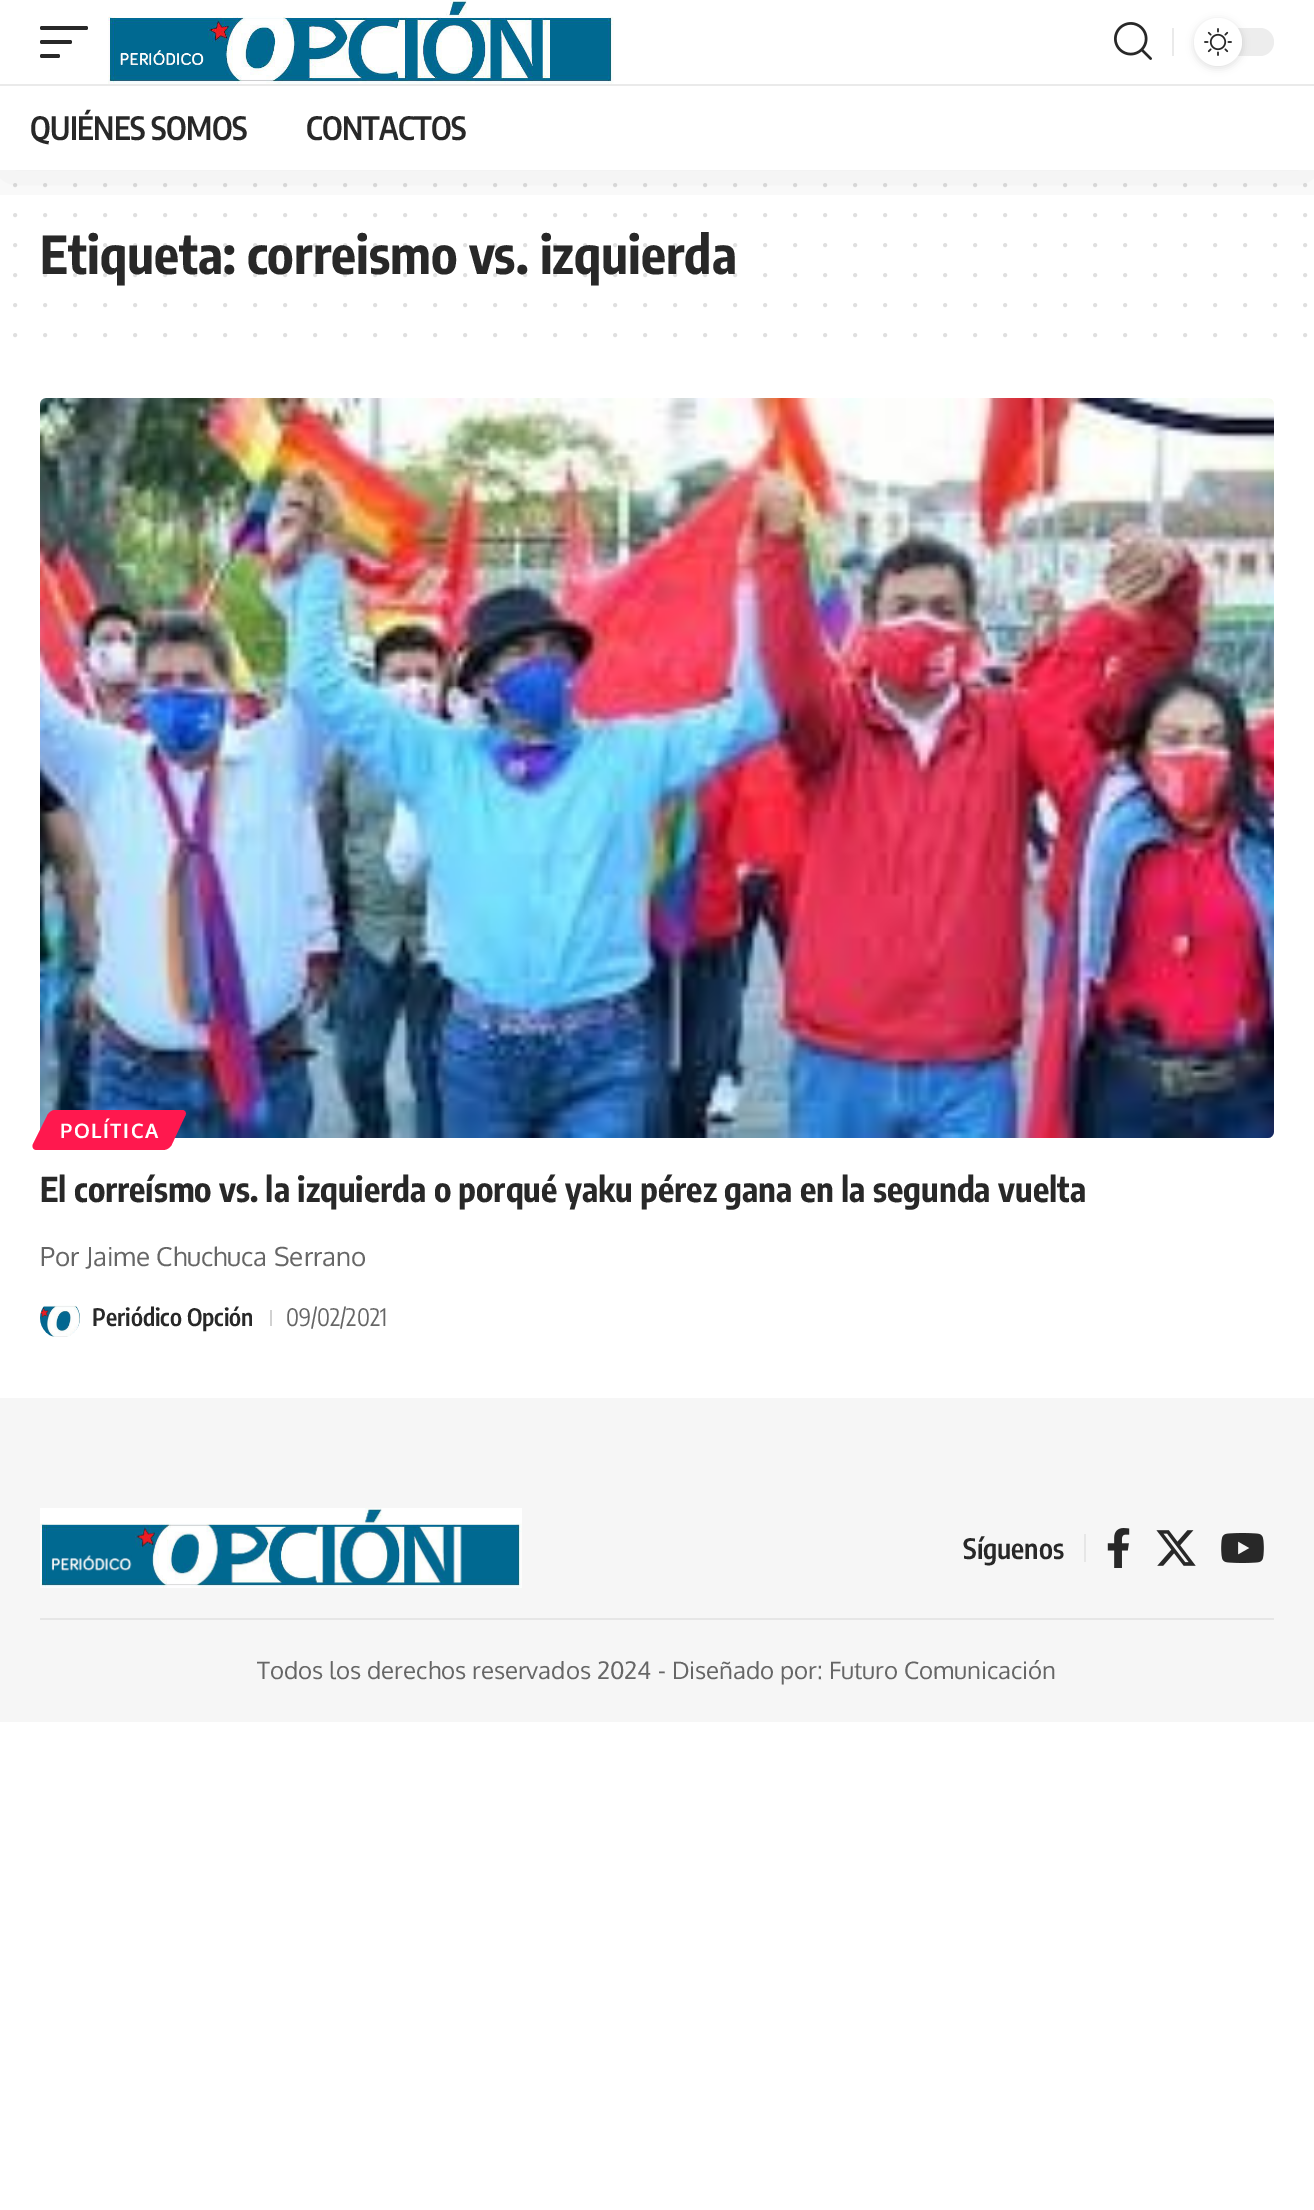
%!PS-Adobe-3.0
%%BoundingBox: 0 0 1314 2210
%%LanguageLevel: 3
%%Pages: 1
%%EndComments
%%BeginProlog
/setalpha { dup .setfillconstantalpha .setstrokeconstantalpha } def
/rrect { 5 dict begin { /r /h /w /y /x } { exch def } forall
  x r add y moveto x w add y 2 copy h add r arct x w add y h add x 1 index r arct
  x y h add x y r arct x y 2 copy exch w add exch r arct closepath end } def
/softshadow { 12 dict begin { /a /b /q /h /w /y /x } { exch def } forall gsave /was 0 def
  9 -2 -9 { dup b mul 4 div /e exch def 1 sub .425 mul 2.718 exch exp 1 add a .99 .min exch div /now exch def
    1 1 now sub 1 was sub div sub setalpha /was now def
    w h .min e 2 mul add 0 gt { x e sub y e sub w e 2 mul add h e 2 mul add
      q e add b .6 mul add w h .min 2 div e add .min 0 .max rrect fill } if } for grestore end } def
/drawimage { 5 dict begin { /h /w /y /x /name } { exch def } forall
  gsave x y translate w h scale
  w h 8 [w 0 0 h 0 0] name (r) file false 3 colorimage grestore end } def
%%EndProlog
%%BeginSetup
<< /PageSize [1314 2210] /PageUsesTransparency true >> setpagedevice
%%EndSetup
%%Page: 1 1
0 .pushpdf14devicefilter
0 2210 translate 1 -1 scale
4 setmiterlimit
1 setgray
0 0 1314 2210 rectfill
0.875 setgray
4 setlinewidth
1 setlinecap
[0 30] 0 setdash
newpath 15 185 moveto 1305.4 185 lineto stroke
newpath 15 215 moveto 1305.4 215 lineto stroke
newpath 15 305 moveto 1305.4 305 lineto stroke
newpath 15 335 moveto 1305.4 335 lineto stroke
(images/4.raw) 40 398 1234 740 drawimage
1 0.094 0.306 setrgbcolor
newpath 55 1110 moveto 182 1110 lineto 185 1110 187 1113 185 1116 curveto 172 1144 lineto 171 1147 167 1150 163 1150 curveto 37 1150 lineto 33 1150 32 1147 33 1144 curveto 47 1116 lineto 48 1113 52 1110 55 1110 curveto closepath fill
(images/5.raw) 40 1305 40 32 drawimage
0.82 setgray
270 1310 2 16 rectfill
0.965 setgray
0 1398 1314 324 rectfill
(images/6.raw) 40 1508 482 80 drawimage
0.902 setgray
1084 1534 2 28 rectfill
(images/7.raw) 1107 1528 23 40 drawimage
(images/8.raw) 1156 1530 40 36 drawimage
(images/9.raw) 1221 1533 43 30 drawimage
40 1618 1234 2 rectfill
/EncodeSansCondensed-Bold [52 0 0 -52 0 0] selectfont
0.157 setgray
40 274 moveto (Etiqueta: correismo vs. izquierda) show
0.15 setalpha
newpath 15 245 moveto 1305.4 245 lineto stroke
gsave
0 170 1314 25 rectclip
1 setalpha
0 setgray
0 8 1314 170 0 30 0.07 softshadow
grestore
/EncodeSansCondensed-SemiBold [32 0 0 -32 0 0] selectfont
1 setalpha
306 140 moveto -0.6 0 (CONTACTOS) ashow
30 140 moveto -0.6 0 (QUIÉNES SOMOS) ashow
0.918 setgray
0 84 1314 2 rectfill
0.929 setgray
1194 28 80 28 14 rrect fill
0 setgray
1194 20 48 48 24 4 0.12 softshadow
1 setgray
newpath 1218 42 24 0 360 arc closepath fill
(images/3.raw) 1204 28 28 28 drawimage
0.918 setgray
1172 28 2 28 rectfill
(images/2.raw) 1114 22 38 38 drawimage
0.157 setgray
40 54 20 4 2 rrect fill
40 40 32 4 2 rrect fill
40 26 48 4 2 rrect fill
(images/1.raw) 108 0 506 84 drawimage
0.15 setalpha
newpath 15 275 moveto 1305.4 275 lineto stroke
/Oxygen-Bold [20 0 0 -20 0 0] selectfont
1 setalpha
1 setgray
60 1138 moveto 1.5 0 (POLÍTICA) ashow
/EncodeSansCondensed-Bold [34 0 0 -34 0 0] selectfont
0.157 setgray
40 1202 moveto (El correísmo vs. la izquierda o porqué yaku pérez gana en la segunda vuelta) show
/Oxygen-Regular [26 0 0 -26 0 0] selectfont
0.4 setgray
40 1266 moveto (Por Jaime Chuchuca Serrano) show
/EncodeSansCondensed-SemiBold [24 0 0 -24 0 0] selectfont
0.157 setgray
92 1326 moveto (Periódico Opción) show
/EncodeSansCondensed-Regular [24 0 0 -24 0 0] selectfont
0.4 setgray
286 1326 moveto (09/02/2021) show
/EncodeSansCondensed-SemiBold [28 0 0 -28 0 0] selectfont
0.157 setgray
963 1559 moveto (Síguenos) show
/Oxygen-Regular [24 0 0 -24 0 0] selectfont
0.4 setgray
257 1679 moveto (Todos los derechos reservados 2024 - Diseñado por: Futuro Comunicación) show
.poppdf14devicefilter showpage
%%EOF
